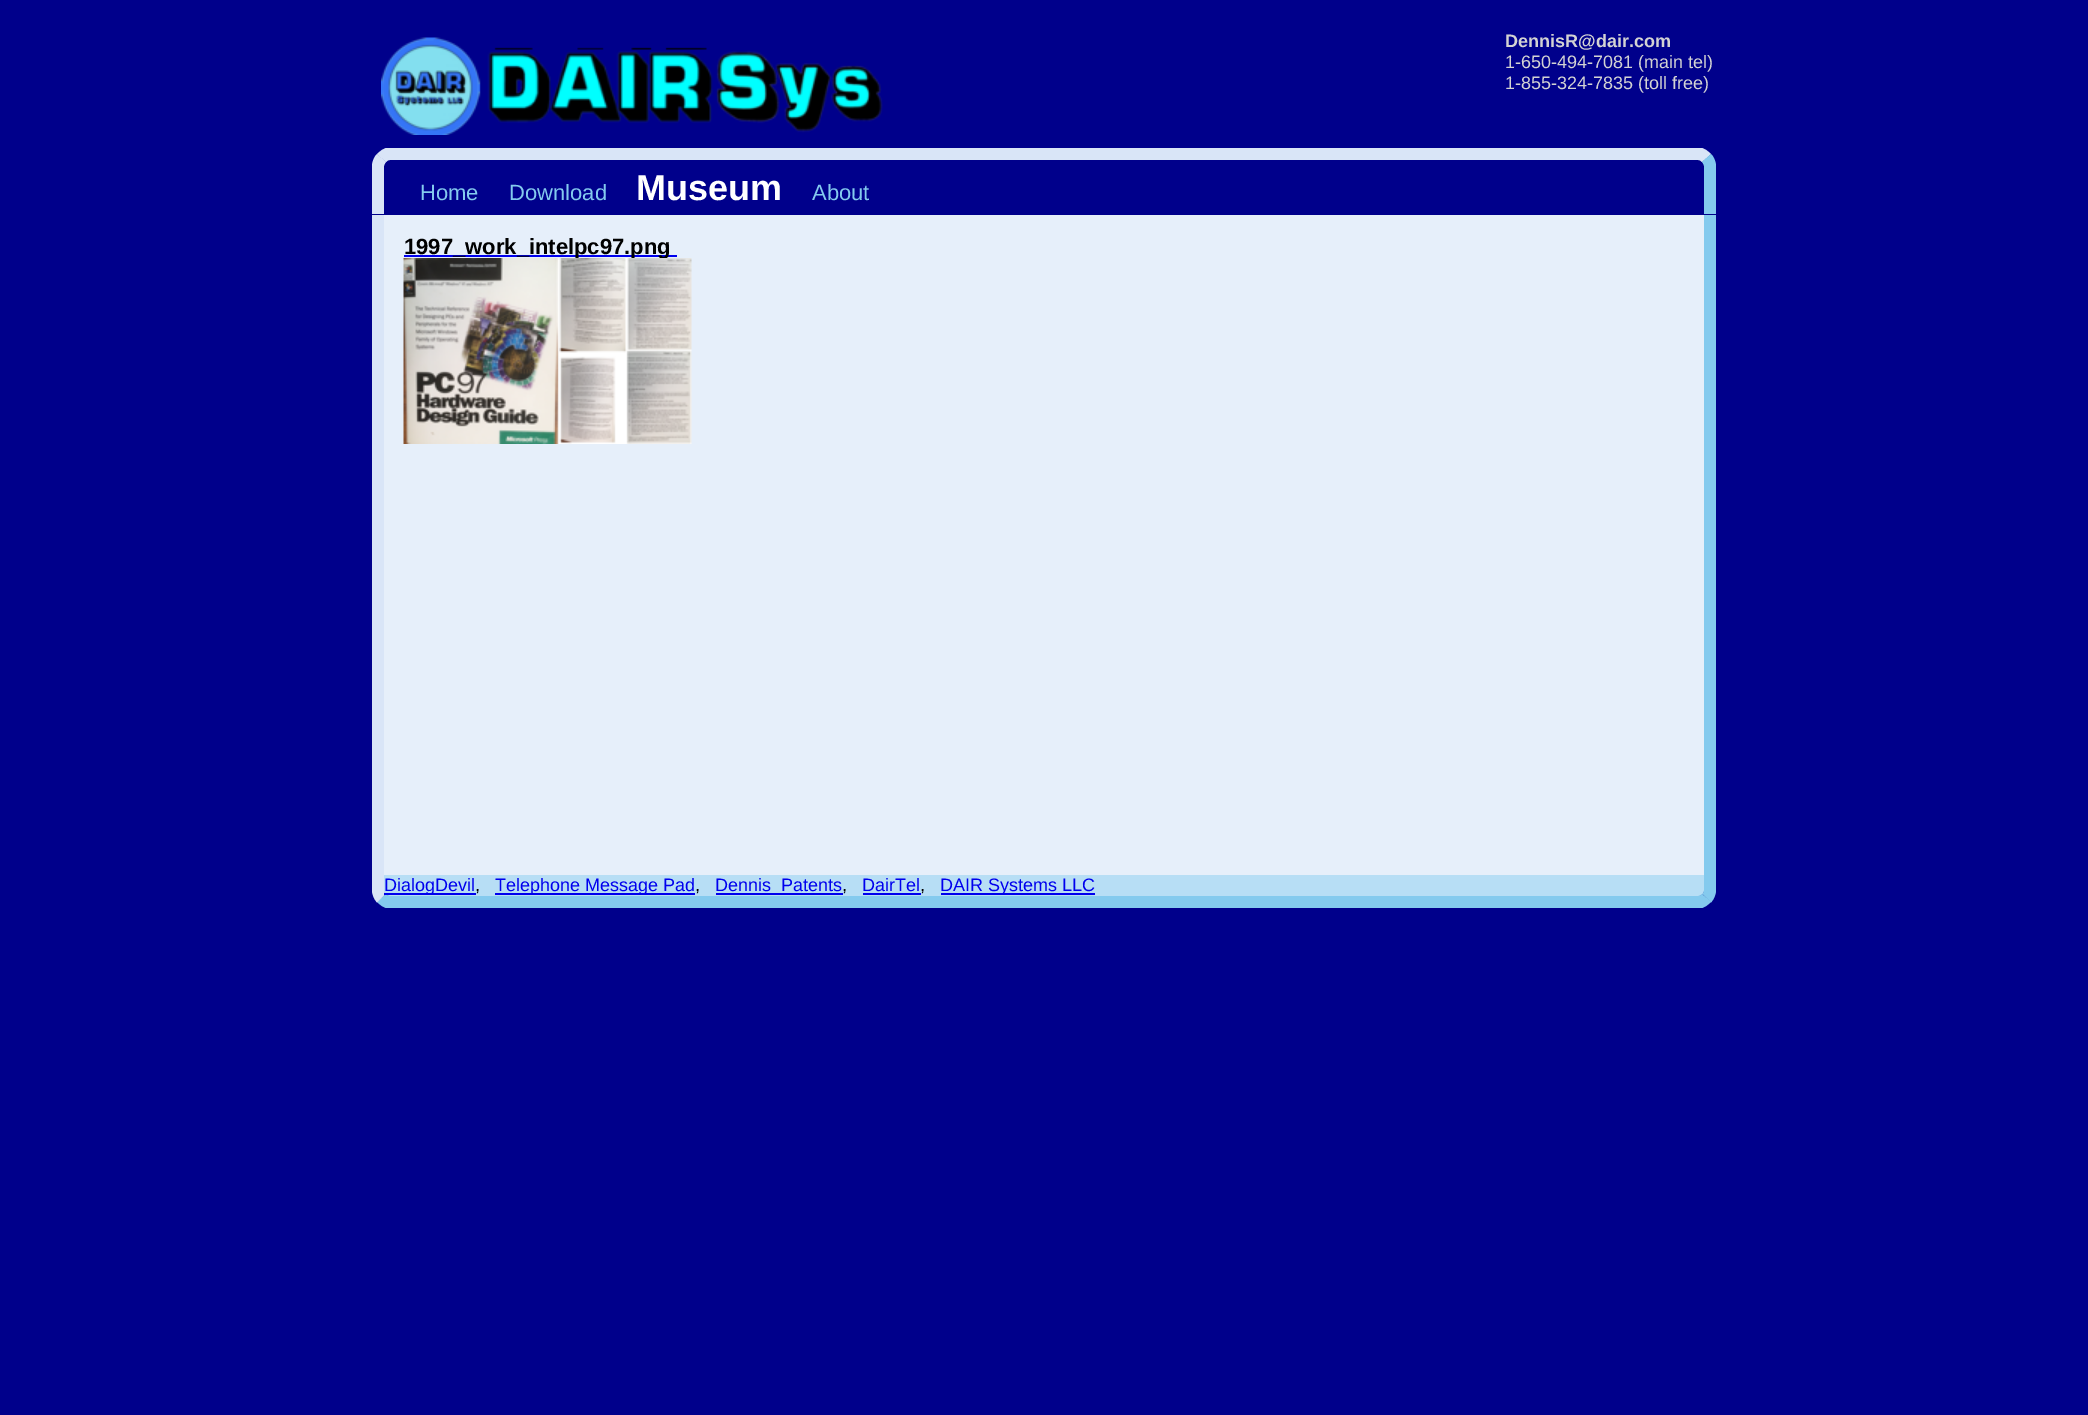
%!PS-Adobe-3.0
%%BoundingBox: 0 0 2088 1415
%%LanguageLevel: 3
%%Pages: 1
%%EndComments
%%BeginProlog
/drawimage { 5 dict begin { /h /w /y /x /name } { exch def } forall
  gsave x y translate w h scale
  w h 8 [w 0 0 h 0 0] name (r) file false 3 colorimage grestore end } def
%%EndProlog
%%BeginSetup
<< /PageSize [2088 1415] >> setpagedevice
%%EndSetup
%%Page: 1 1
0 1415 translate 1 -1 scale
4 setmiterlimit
0 0 0.545 setrgbcolor
0 0 2088 1415 rectfill
(images/1.raw) 381 37 502 98 drawimage
0.851 0.898 0.969 setrgbcolor
newpath 390 160 moveto 388 160 387 161 386 162 curveto 377 154 lineto 380 151 383 149 386 148 curveto 1702 148 lineto 1705 149 1708 151 1711 154 curveto 1702 162 lineto 1701 161 1700 160 1698 160 curveto closepath fill
0.518 0.792 0.933 setrgbcolor
newpath 1716 214 moveto 1716 166 lineto 1716 162 1714 157 1711 154 curveto 1702 162 lineto 1703 163 1704 165 1704 166 curveto 1704 214 lineto closepath fill
0.851 0.898 0.969 setrgbcolor
newpath 372 166 moveto 372 214 lineto 384 214 lineto 384 166 lineto 384 165 385 163 386 162 curveto 377 154 lineto 374 157 372 162 372 166 curveto closepath fill
0.902 0.937 0.98 setrgbcolor
384 215 1320 660 rectfill
0.518 0.792 0.933 setrgbcolor
1704 215 12 660 rectfill
0.851 0.898 0.969 setrgbcolor
372 215 12 660 rectfill
0 0 0.933 setrgbcolor
404 255 273 2 rectfill
0.718 0.871 0.961 setrgbcolor
newpath 384 875 moveto 1704 875 lineto 1704 890 lineto 1704 893.5 1701.5 896 1698 896 curveto 390 896 lineto 386.5 896 384 893.5 384 890 curveto closepath fill
0.518 0.792 0.933 setrgbcolor
newpath 1716 874.5 moveto 1704 874.5 lineto 1704 890 lineto 1704 891.5 1703.5 893 1702.5 894 curveto 1711 902.5 lineto 1714 899 1716 894.5 1716 890 curveto closepath fill
newpath 386 908 moveto 383 907 380 905 377 902 curveto 386 894 lineto 387 895 388 896 390 896 curveto 1698 896 lineto 1700 896 1701 895 1702 894 curveto 1711 902 lineto 1708 905 1705 907 1702 908 curveto closepath fill
0.851 0.898 0.969 setrgbcolor
newpath 372 874.5 moveto 372 890 lineto 372 894.5 374 899 377 902.5 curveto 385.5 894 lineto 384.5 893 384 891.5 384 890 curveto 384 874.5 lineto closepath fill
0 0 0.933 setrgbcolor
384 893 92 2 rectfill
495 893 200 2 rectfill
716 893 127 2 rectfill
863 893 58 2 rectfill
941 893 154 2 rectfill
/LiberationSans-Bold [18 0 0 -18 0 0] selectfont
0.827 setgray
1505 47 moveto (DennisR@dair.com) show
/LiberationSans-Regular [18 0 0 -18 0 0] selectfont
1505 68 moveto (1-650-494-7081 \(main tel\)) show
1505 89 moveto (1-855-324-7835 \(toll free\)) show
/LiberationSans-Regular [22 0 0 -22 0 0] selectfont
0.518 0.792 0.933 setrgbcolor
420 200 moveto (Home) show
509 200 moveto (Download) show
/LiberationSans-Bold [36 0 0 -36 0 0] selectfont
1 setgray
636 200 moveto (Museum) show
/LiberationSans-Regular [22 0 0 -22 0 0] selectfont
0.518 0.792 0.933 setrgbcolor
812 200 moveto (About) show
/LiberationSans-Bold [22 0 0 -22 0 0] selectfont
0 setgray
404 254 moveto (1997_work_intelpc97.png) show
(images/2.raw) 403 258 289 186 drawimage
/LiberationSans-Regular [18 0 0 -18 0 0] selectfont
0 0 0.933 setrgbcolor
384 891 moveto (DialogDevil) show
0 setgray
475 891 moveto (,) show
0 0 0.933 setrgbcolor
495 891 moveto (Telephone Message Pad) show
0 setgray
695 891 moveto (,) show
0 0 0.933 setrgbcolor
715 891 moveto (Dennis_Patents) show
0 setgray
842 891 moveto (,) show
0 0 0.933 setrgbcolor
862 891 moveto (DairTel) show
0 setgray
920 891 moveto (,) show
0 0 0.933 setrgbcolor
940 891 moveto (DAIR Systems LLC) show
showpage
%%EOF
